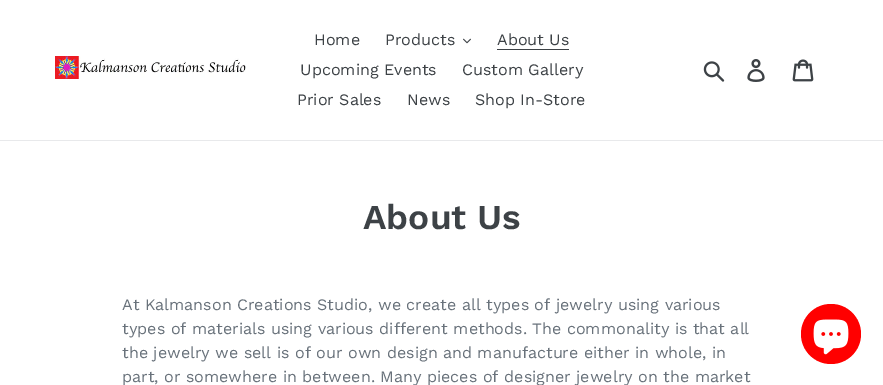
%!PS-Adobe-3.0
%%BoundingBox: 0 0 883 385
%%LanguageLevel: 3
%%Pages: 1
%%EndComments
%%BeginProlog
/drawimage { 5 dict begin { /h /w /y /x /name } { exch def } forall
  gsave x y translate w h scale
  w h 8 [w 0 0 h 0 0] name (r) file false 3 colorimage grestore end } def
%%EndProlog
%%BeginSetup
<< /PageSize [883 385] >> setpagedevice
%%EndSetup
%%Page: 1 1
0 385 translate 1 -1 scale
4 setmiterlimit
1 setgray
0 0 883 385 rectfill
0.91 0.914 0.922 setrgbcolor
0 140 883 1 rectfill
(images/1.raw) 55 56 191 23 drawimage
(images/2.raw) 463 38 8 6 drawimage
0.239 0.259 0.275 setrgbcolor
497 49 72 1 rectfill
(images/3.raw) 703 61 22 21 drawimage
(images/4.raw) 747 59 18 23 drawimage
(images/5.raw) 792 59 22 23 drawimage
1 0 0 setrgbcolor
newpath 831 334 30 0 360 arc closepath fill
(images/6.raw) 813 319 36 36 drawimage
/WorkSans-Regular [16 0 0 -16 0 0] selectfont
0.239 0.259 0.275 setrgbcolor
314 45 moveto (Home) show
385 45 moveto (Products) show
497 45 moveto (About Us) show
300 75 moveto (Upcoming Events) show
462 75 moveto (Custom Gallery) show
297 105 moveto (Prior Sales) show
407 105 moveto (News) show
475 105 moveto (Shop In-Store) show
/WorkSans-SemiBold [35 0 0 -35 0 0] selectfont
363 229 moveto (About Us) show
/WorkSans-Regular [16 0 0 -16 0 0] selectfont
0.412 0.447 0.482 setrgbcolor
122 310 moveto (At Kalmanson Creations Studio, we create all types of jewelry using various) show
122 334 moveto (types of materials using various different methods. The commonality is that all) show
122 358 moveto (the jewelry we sell is of our own design and manufacture either in whole, in) show
122 382 moveto (part, or somewhere in between. Many pieces of designer jewelry on the market) show
showpage
%%EOF
